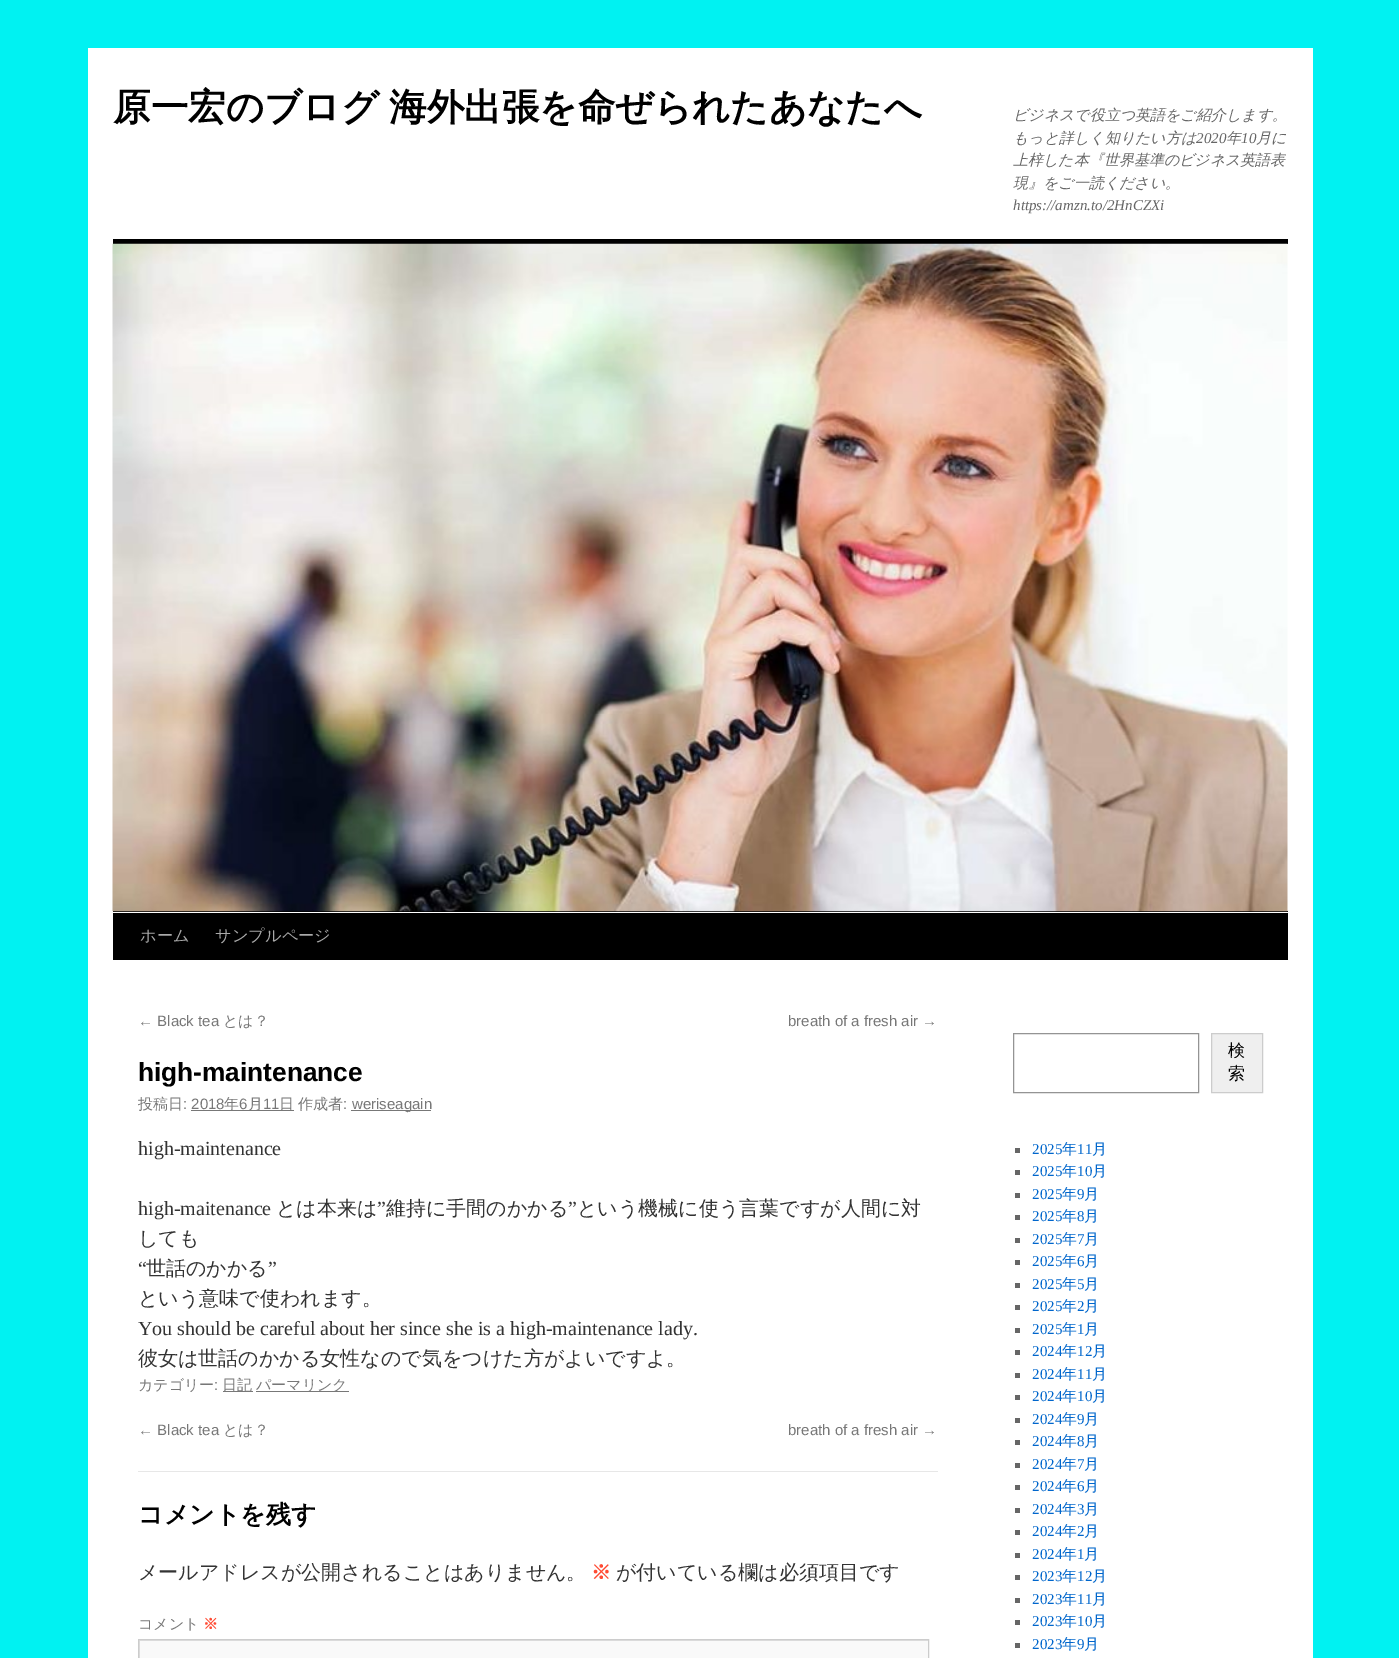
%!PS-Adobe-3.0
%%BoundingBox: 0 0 1399 1658
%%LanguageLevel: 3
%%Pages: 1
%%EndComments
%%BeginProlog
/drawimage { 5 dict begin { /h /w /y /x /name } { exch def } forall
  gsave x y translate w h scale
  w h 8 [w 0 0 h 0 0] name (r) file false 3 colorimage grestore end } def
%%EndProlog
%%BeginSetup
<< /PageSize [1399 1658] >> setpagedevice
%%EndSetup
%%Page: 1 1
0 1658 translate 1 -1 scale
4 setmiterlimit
0 0.949 0.949 setrgbcolor
0 0 1399 1658 rectfill
1 setgray
88 48 1225 1610 rectfill
0 setgray
113 239 1175 5 rectfill
113 911 1175 1 rectfill
(images/1.raw) 112 243 1176 669 drawimage
113 913 1175 47 rectfill
0.467 setgray
191 1110 103 1 rectfill
351 1110 80 1 rectfill
223 1391 30 1 rectfill
256 1391 93 1 rectfill
0.906 setgray
138 1471 800 1 rectfill
0.976 setgray
140 1641 788 17 rectfill
gsave
139 1640 789 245 rectclip
0.878 setgray
newpath 15 1516 moveto 1051 1516 lineto 1051 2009 lineto 15 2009 lineto closepath 140 1641 moveto 929 1641 lineto 929 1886 lineto 140 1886 lineto closepath eofill
grestore
0.8 setgray
138.5 1639.5 790 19 rectstroke
0.58 setgray
1013.5 1033.5 185 59 rectstroke
0.937 setgray
newpath 1211.5 1033.5 moveto 1262.5 1033.5 lineto 1262.5 1092.5 lineto 1211.5 1092.5 lineto closepath gsave fill grestore
0.8 setgray
stroke
0.4 setgray
1015 1148 5 5 rectfill
1015 1170 5 5 rectfill
1015 1193 5 5 rectfill
1015 1215 5 5 rectfill
1015 1238 5 5 rectfill
1015 1260 5 5 rectfill
1015 1283 5 5 rectfill
1015 1305 5 5 rectfill
1015 1328 5 5 rectfill
1015 1350 5 5 rectfill
1015 1373 5 5 rectfill
1015 1395 5 5 rectfill
1015 1418 5 5 rectfill
1015 1440 5 5 rectfill
1015 1463 5 5 rectfill
1015 1485 5 5 rectfill
1015 1508 5 5 rectfill
1015 1530 5 5 rectfill
1015 1553 5 5 rectfill
1015 1575 5 5 rectfill
1015 1598 5 5 rectfill
1015 1620 5 5 rectfill
1015 1643 5 5 rectfill
/WenQuanYiZenHei-Bold [37.5 0 0 -37.5 0 0] selectfont
0 setgray
113 120 moveto -1 0 32 (原一宏のブログ 海外出張を命ぜられたあなたへ) widthshow
/WenQuanYiZenHei-MediumItalic [15 0 0 -15 0 0] selectfont
0.4 setgray
1013 120 moveto (ビジネスで役立つ英語をご紹介します。) show
1013 143 moveto (もっと詳しく知りたい方は) show
/LiberationSerif-Italic [15 0 0 -15 0 0] selectfont
1196 143 moveto (2020) show
/WenQuanYiZenHei-MediumItalic [15 0 0 -15 0 0] selectfont
1226 143 moveto (年) show
/LiberationSerif-Italic [15 0 0 -15 0 0] selectfont
1241 143 moveto (10) show
/WenQuanYiZenHei-MediumItalic [15 0 0 -15 0 0] selectfont
1256 143 moveto (月に) show
1013 165 moveto (上梓した本『世界基準のビジネス英語表) show
1013 188 moveto (現』をご一読ください。) show
/LiberationSerif-Italic [15 0 0 -15 0 0] selectfont
1013 210 moveto (https://amzn.to/2HnCZXi) show
/WenQuanYiZenHei-Medium [16.25 0 0 -16.25 0 0] selectfont
0.667 setgray
140 941 moveto (ホーム) show
215 941 moveto (サンプルページ) show
/LiberationSans-Regular [15 0 0 -15 0 0] selectfont
0.467 setgray
138 1026 moveto (← Black tea) show
/WenQuanYiZenHei-Medium [15 0 0 -15 0 0] selectfont
223 1026 moveto (とは？) show
/LiberationSans-Regular [15 0 0 -15 0 0] selectfont
788 1026 moveto (breath of a fresh air →) show
/LiberationSans-Bold [26.25 0 0 -26.25 0 0] selectfont
0 setgray
138 1081 moveto (high-maintenance) show
/WenQuanYiZenHei-Medium [15 0 0 -15 0 0] selectfont
0.467 setgray
138 1109 moveto (投稿日) show
/LiberationSans-Regular [15 0 0 -15 0 0] selectfont
183 1109 moveto (: 2018) show
/WenQuanYiZenHei-Medium [15 0 0 -15 0 0] selectfont
224 1109 moveto (年) show
/LiberationSans-Regular [15 0 0 -15 0 0] selectfont
239 1109 moveto (6) show
/WenQuanYiZenHei-Medium [15 0 0 -15 0 0] selectfont
248 1109 moveto (月) show
/LiberationSans-Regular [15 0 0 -15 0 0] selectfont
263 1109 moveto (11) show
/WenQuanYiZenHei-Medium [15 0 0 -15 0 0] selectfont
279 1109 moveto (日) show
298 1109 moveto (作成者) show
/LiberationSans-Regular [15 0 0 -15 0 0] selectfont
343 1109 moveto (:) show
352 1109 moveto (weriseagain) show
/LiberationSerif-Regular [20 0 0 -20 0 0] selectfont
0.2 setgray
138 1155 moveto (high-maintenance) show
138 1215 moveto (high-maitenance) show
/WenQuanYiZenHei-Medium [20 0 0 -20 0 0] selectfont
276 1215 moveto (とは本来は) show
/LiberationSerif-Regular [20 0 0 -20 0 0] selectfont
377 1215 moveto (”) show
/WenQuanYiZenHei-Medium [20 0 0 -20 0 0] selectfont
386 1215 moveto (維持に手間のかかる) show
/LiberationSerif-Regular [20 0 0 -20 0 0] selectfont
568 1215 moveto (”) show
/WenQuanYiZenHei-Medium [20 0 0 -20 0 0] selectfont
577 1215 moveto (という機械に使う言葉ですが人間に対) show
138 1245 moveto (しても) show
/LiberationSerif-Regular [20 0 0 -20 0 0] selectfont
138 1275 moveto (“) show
/WenQuanYiZenHei-Medium [20 0 0 -20 0 0] selectfont
146 1275 moveto (世話のかかる) show
/LiberationSerif-Regular [20 0 0 -20 0 0] selectfont
268 1275 moveto (”) show
/WenQuanYiZenHei-Medium [20 0 0 -20 0 0] selectfont
138 1305 moveto (という意味で使われます。) show
/LiberationSerif-Regular [20 0 0 -20 0 0] selectfont
138 1335 moveto (You should be careful about her since she is a high-maintenance lady.) show
/WenQuanYiZenHei-Medium [20 0 0 -20 0 0] selectfont
138 1365 moveto (彼女は世話のかかる女性なので気をつけた方がよいですよ。) show
/WenQuanYiZenHei-Medium [15 0 0 -15 0 0] selectfont
0.467 setgray
138 1390 moveto (カテゴリー) show
/LiberationSans-Regular [15 0 0 -15 0 0] selectfont
214 1390 moveto (:) show
/WenQuanYiZenHei-Medium [15 0 0 -15 0 0] selectfont
222 1390 moveto (日記) show
256 1390 moveto (パーマリンク) show
/LiberationSans-Regular [15 0 0 -15 0 0] selectfont
138 1435 moveto (← Black tea) show
/WenQuanYiZenHei-Medium [15 0 0 -15 0 0] selectfont
223 1435 moveto (とは？) show
/LiberationSans-Regular [15 0 0 -15 0 0] selectfont
788 1435 moveto (breath of a fresh air →) show
/WenQuanYiZenHei-Bold [25 0 0 -25 0 0] selectfont
0 setgray
138 1523 moveto (コメントを残す) show
/WenQuanYiZenHei-Medium [20 0 0 -20 0 0] selectfont
0.2 setgray
138 1579 moveto (メールアドレスが公開されることはありません。) show
/WenQuanYiZenHei-Bold [20 0 0 -20 0 0] selectfont
1 0.294 0.2 setrgbcolor
591 1579 moveto (※) show
/WenQuanYiZenHei-Medium [20 0 0 -20 0 0] selectfont
0.2 setgray
616 1579 moveto (が付いている欄は必須項目です) show
/WenQuanYiZenHei-Medium [15 0 0 -15 0 0] selectfont
0.467 setgray
138 1629 moveto (コメント) show
/WenQuanYiZenHei-Bold [15 0 0 -15 0 0] selectfont
1 0.294 0.2 setrgbcolor
203 1629 moveto (※) show
/WenQuanYiZenHei-Medium [17 0 0 -17 0 0] selectfont
0 setgray
1228 1056 moveto (検) show
1228 1079 moveto (索) show
/LiberationSerif-Regular [15 0 0 -15 0 0] selectfont
0 0.4 0.8 setrgbcolor
1032 1154 moveto (2025) show
/WenQuanYiZenHei-Medium [15 0 0 -15 0 0] selectfont
1062 1154 moveto (年) show
/LiberationSerif-Regular [15 0 0 -15 0 0] selectfont
1077 1154 moveto (11) show
/WenQuanYiZenHei-Medium [15 0 0 -15 0 0] selectfont
1092 1154 moveto (月) show
/LiberationSerif-Regular [15 0 0 -15 0 0] selectfont
1032 1176 moveto (2025) show
/WenQuanYiZenHei-Medium [15 0 0 -15 0 0] selectfont
1062 1176 moveto (年) show
/LiberationSerif-Regular [15 0 0 -15 0 0] selectfont
1077 1176 moveto (10) show
/WenQuanYiZenHei-Medium [15 0 0 -15 0 0] selectfont
1092 1176 moveto (月) show
/LiberationSerif-Regular [15 0 0 -15 0 0] selectfont
1032 1199 moveto (2025) show
/WenQuanYiZenHei-Medium [15 0 0 -15 0 0] selectfont
1062 1199 moveto (年) show
/LiberationSerif-Regular [15 0 0 -15 0 0] selectfont
1077 1199 moveto (9) show
/WenQuanYiZenHei-Medium [15 0 0 -15 0 0] selectfont
1084 1199 moveto (月) show
/LiberationSerif-Regular [15 0 0 -15 0 0] selectfont
1032 1221 moveto (2025) show
/WenQuanYiZenHei-Medium [15 0 0 -15 0 0] selectfont
1062 1221 moveto (年) show
/LiberationSerif-Regular [15 0 0 -15 0 0] selectfont
1077 1221 moveto (8) show
/WenQuanYiZenHei-Medium [15 0 0 -15 0 0] selectfont
1084 1221 moveto (月) show
/LiberationSerif-Regular [15 0 0 -15 0 0] selectfont
1032 1244 moveto (2025) show
/WenQuanYiZenHei-Medium [15 0 0 -15 0 0] selectfont
1062 1244 moveto (年) show
/LiberationSerif-Regular [15 0 0 -15 0 0] selectfont
1077 1244 moveto (7) show
/WenQuanYiZenHei-Medium [15 0 0 -15 0 0] selectfont
1084 1244 moveto (月) show
/LiberationSerif-Regular [15 0 0 -15 0 0] selectfont
1032 1266 moveto (2025) show
/WenQuanYiZenHei-Medium [15 0 0 -15 0 0] selectfont
1062 1266 moveto (年) show
/LiberationSerif-Regular [15 0 0 -15 0 0] selectfont
1077 1266 moveto (6) show
/WenQuanYiZenHei-Medium [15 0 0 -15 0 0] selectfont
1084 1266 moveto (月) show
/LiberationSerif-Regular [15 0 0 -15 0 0] selectfont
1032 1289 moveto (2025) show
/WenQuanYiZenHei-Medium [15 0 0 -15 0 0] selectfont
1062 1289 moveto (年) show
/LiberationSerif-Regular [15 0 0 -15 0 0] selectfont
1077 1289 moveto (5) show
/WenQuanYiZenHei-Medium [15 0 0 -15 0 0] selectfont
1084 1289 moveto (月) show
/LiberationSerif-Regular [15 0 0 -15 0 0] selectfont
1032 1311 moveto (2025) show
/WenQuanYiZenHei-Medium [15 0 0 -15 0 0] selectfont
1062 1311 moveto (年) show
/LiberationSerif-Regular [15 0 0 -15 0 0] selectfont
1077 1311 moveto (2) show
/WenQuanYiZenHei-Medium [15 0 0 -15 0 0] selectfont
1084 1311 moveto (月) show
/LiberationSerif-Regular [15 0 0 -15 0 0] selectfont
1032 1334 moveto (2025) show
/WenQuanYiZenHei-Medium [15 0 0 -15 0 0] selectfont
1062 1334 moveto (年) show
/LiberationSerif-Regular [15 0 0 -15 0 0] selectfont
1077 1334 moveto (1) show
/WenQuanYiZenHei-Medium [15 0 0 -15 0 0] selectfont
1084 1334 moveto (月) show
/LiberationSerif-Regular [15 0 0 -15 0 0] selectfont
1032 1356 moveto (2024) show
/WenQuanYiZenHei-Medium [15 0 0 -15 0 0] selectfont
1062 1356 moveto (年) show
/LiberationSerif-Regular [15 0 0 -15 0 0] selectfont
1077 1356 moveto (12) show
/WenQuanYiZenHei-Medium [15 0 0 -15 0 0] selectfont
1092 1356 moveto (月) show
/LiberationSerif-Regular [15 0 0 -15 0 0] selectfont
1032 1379 moveto (2024) show
/WenQuanYiZenHei-Medium [15 0 0 -15 0 0] selectfont
1062 1379 moveto (年) show
/LiberationSerif-Regular [15 0 0 -15 0 0] selectfont
1077 1379 moveto (11) show
/WenQuanYiZenHei-Medium [15 0 0 -15 0 0] selectfont
1092 1379 moveto (月) show
/LiberationSerif-Regular [15 0 0 -15 0 0] selectfont
1032 1401 moveto (2024) show
/WenQuanYiZenHei-Medium [15 0 0 -15 0 0] selectfont
1062 1401 moveto (年) show
/LiberationSerif-Regular [15 0 0 -15 0 0] selectfont
1077 1401 moveto (10) show
/WenQuanYiZenHei-Medium [15 0 0 -15 0 0] selectfont
1092 1401 moveto (月) show
/LiberationSerif-Regular [15 0 0 -15 0 0] selectfont
1032 1424 moveto (2024) show
/WenQuanYiZenHei-Medium [15 0 0 -15 0 0] selectfont
1062 1424 moveto (年) show
/LiberationSerif-Regular [15 0 0 -15 0 0] selectfont
1077 1424 moveto (9) show
/WenQuanYiZenHei-Medium [15 0 0 -15 0 0] selectfont
1084 1424 moveto (月) show
/LiberationSerif-Regular [15 0 0 -15 0 0] selectfont
1032 1446 moveto (2024) show
/WenQuanYiZenHei-Medium [15 0 0 -15 0 0] selectfont
1062 1446 moveto (年) show
/LiberationSerif-Regular [15 0 0 -15 0 0] selectfont
1077 1446 moveto (8) show
/WenQuanYiZenHei-Medium [15 0 0 -15 0 0] selectfont
1084 1446 moveto (月) show
/LiberationSerif-Regular [15 0 0 -15 0 0] selectfont
1032 1469 moveto (2024) show
/WenQuanYiZenHei-Medium [15 0 0 -15 0 0] selectfont
1062 1469 moveto (年) show
/LiberationSerif-Regular [15 0 0 -15 0 0] selectfont
1077 1469 moveto (7) show
/WenQuanYiZenHei-Medium [15 0 0 -15 0 0] selectfont
1084 1469 moveto (月) show
/LiberationSerif-Regular [15 0 0 -15 0 0] selectfont
1032 1491 moveto (2024) show
/WenQuanYiZenHei-Medium [15 0 0 -15 0 0] selectfont
1062 1491 moveto (年) show
/LiberationSerif-Regular [15 0 0 -15 0 0] selectfont
1077 1491 moveto (6) show
/WenQuanYiZenHei-Medium [15 0 0 -15 0 0] selectfont
1084 1491 moveto (月) show
/LiberationSerif-Regular [15 0 0 -15 0 0] selectfont
1032 1514 moveto (2024) show
/WenQuanYiZenHei-Medium [15 0 0 -15 0 0] selectfont
1062 1514 moveto (年) show
/LiberationSerif-Regular [15 0 0 -15 0 0] selectfont
1077 1514 moveto (3) show
/WenQuanYiZenHei-Medium [15 0 0 -15 0 0] selectfont
1084 1514 moveto (月) show
/LiberationSerif-Regular [15 0 0 -15 0 0] selectfont
1032 1536 moveto (2024) show
/WenQuanYiZenHei-Medium [15 0 0 -15 0 0] selectfont
1062 1536 moveto (年) show
/LiberationSerif-Regular [15 0 0 -15 0 0] selectfont
1077 1536 moveto (2) show
/WenQuanYiZenHei-Medium [15 0 0 -15 0 0] selectfont
1084 1536 moveto (月) show
/LiberationSerif-Regular [15 0 0 -15 0 0] selectfont
1032 1559 moveto (2024) show
/WenQuanYiZenHei-Medium [15 0 0 -15 0 0] selectfont
1062 1559 moveto (年) show
/LiberationSerif-Regular [15 0 0 -15 0 0] selectfont
1077 1559 moveto (1) show
/WenQuanYiZenHei-Medium [15 0 0 -15 0 0] selectfont
1084 1559 moveto (月) show
/LiberationSerif-Regular [15 0 0 -15 0 0] selectfont
1032 1581 moveto (2023) show
/WenQuanYiZenHei-Medium [15 0 0 -15 0 0] selectfont
1062 1581 moveto (年) show
/LiberationSerif-Regular [15 0 0 -15 0 0] selectfont
1077 1581 moveto (12) show
/WenQuanYiZenHei-Medium [15 0 0 -15 0 0] selectfont
1092 1581 moveto (月) show
/LiberationSerif-Regular [15 0 0 -15 0 0] selectfont
1032 1604 moveto (2023) show
/WenQuanYiZenHei-Medium [15 0 0 -15 0 0] selectfont
1062 1604 moveto (年) show
/LiberationSerif-Regular [15 0 0 -15 0 0] selectfont
1077 1604 moveto (11) show
/WenQuanYiZenHei-Medium [15 0 0 -15 0 0] selectfont
1092 1604 moveto (月) show
/LiberationSerif-Regular [15 0 0 -15 0 0] selectfont
1032 1626 moveto (2023) show
/WenQuanYiZenHei-Medium [15 0 0 -15 0 0] selectfont
1062 1626 moveto (年) show
/LiberationSerif-Regular [15 0 0 -15 0 0] selectfont
1077 1626 moveto (10) show
/WenQuanYiZenHei-Medium [15 0 0 -15 0 0] selectfont
1092 1626 moveto (月) show
/LiberationSerif-Regular [15 0 0 -15 0 0] selectfont
1032 1649 moveto (2023) show
/WenQuanYiZenHei-Medium [15 0 0 -15 0 0] selectfont
1062 1649 moveto (年) show
/LiberationSerif-Regular [15 0 0 -15 0 0] selectfont
1077 1649 moveto (9) show
/WenQuanYiZenHei-Medium [15 0 0 -15 0 0] selectfont
1084 1649 moveto (月) show
showpage
%%EOF
